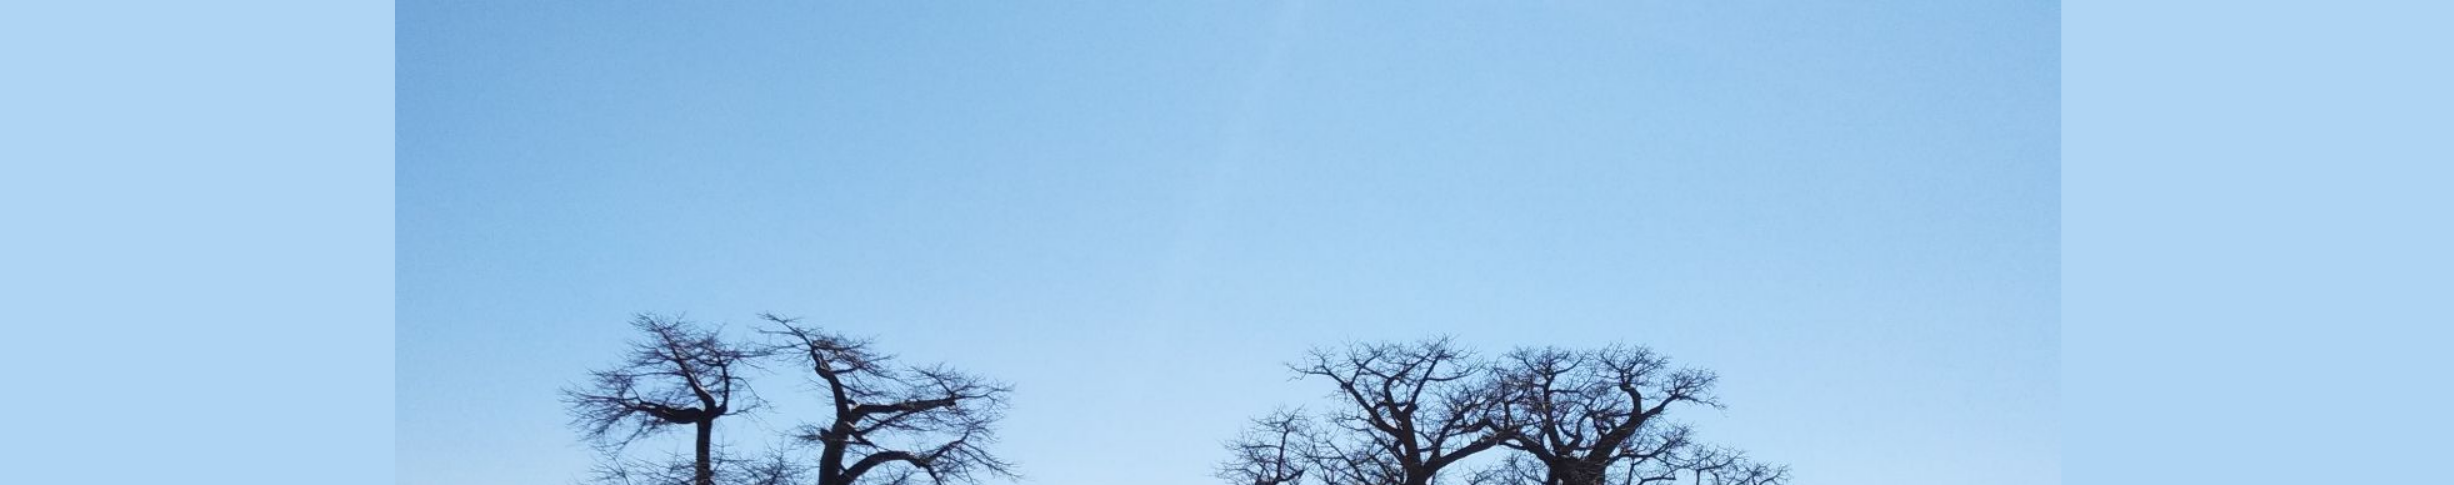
%!PS-Adobe-3.0
%%BoundingBox: 0 0 2454 485
%%LanguageLevel: 3
%%Pages: 1
%%EndComments
%%BeginProlog
/drawimage { 5 dict begin { /h /w /y /x /name } { exch def } forall
  gsave x y translate w h scale
  w h 8 [w 0 0 h 0 0] name (r) file false 3 colorimage grestore end } def
%%EndProlog
%%BeginSetup
<< /PageSize [2454 485] >> setpagedevice
%%EndSetup
%%Page: 1 1
0 485 translate 1 -1 scale
4 setmiterlimit
0.686 0.835 0.957 setrgbcolor
0 0 2454 485 rectfill
(images/1.raw) 395 0 1667 485 drawimage
showpage
%%EOF
